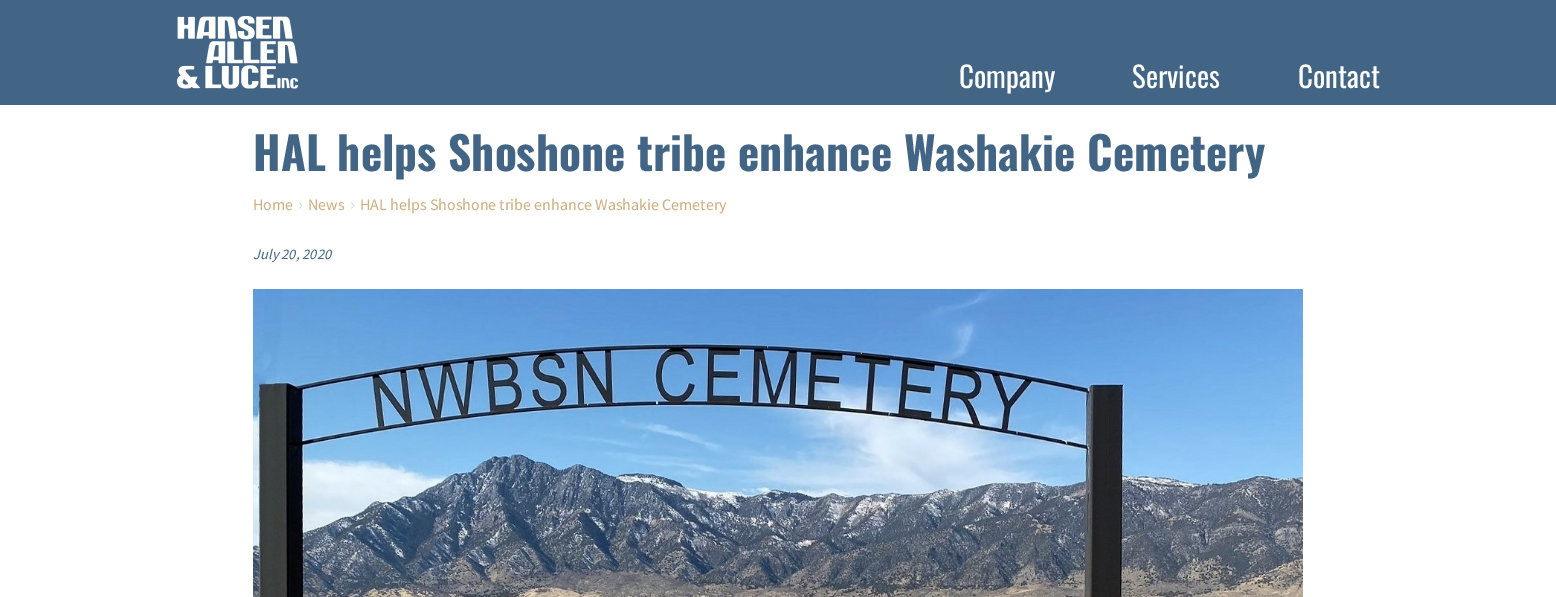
%!PS-Adobe-3.0
%%BoundingBox: 0 0 1556 597
%%LanguageLevel: 3
%%Pages: 1
%%EndComments
%%BeginProlog
/drawimage { 5 dict begin { /h /w /y /x /name } { exch def } forall
  gsave x y translate w h scale
  w h 8 [w 0 0 h 0 0] name (r) file false 3 colorimage grestore end } def
%%EndProlog
%%BeginSetup
<< /PageSize [1556 597] >> setpagedevice
%%EndSetup
%%Page: 1 1
0 597 translate 1 -1 scale
4 setmiterlimit
1 setgray
0 0 1556 597 rectfill
0.263 0.396 0.522 setrgbcolor
0 0 1556 105 rectfill
(images/1.raw) 177 16 121 73 drawimage
(images/2.raw) 253 289 1050 308 drawimage
/Oswald-Regular [29 0 0 -29 0 0] selectfont
1 setgray
959 88 moveto (Company) show
1132 88 moveto (Services) show
1298 88 moveto (Contact) show
/Oswald-Bold [45.4 0 0 -45.4 0 0] selectfont
0.263 0.396 0.522 setrgbcolor
253 171 moveto (HAL helps Shoshone tribe enhance Washakie Cemetery) show
/SourceSansPro-Regular [16 0 0 -16 0 0] selectfont
0.808 0.678 0.494 setrgbcolor
253 210 moveto (Home) show
/SourceSansPro-Regular [18 0 0 -18 0 0] selectfont
0.808 0.843 0.875 setrgbcolor
298 210 moveto (›) show
/SourceSansPro-Regular [16 0 0 -16 0 0] selectfont
0.808 0.678 0.494 setrgbcolor
308 210 moveto (News) show
/SourceSansPro-Regular [18 0 0 -18 0 0] selectfont
0.808 0.843 0.875 setrgbcolor
350 210 moveto (›) show
/SourceSansPro-Regular [16 0 0 -16 0 0] selectfont
0.808 0.678 0.494 setrgbcolor
360 210 moveto (HAL helps Shoshone tribe enhance Washakie Cemetery) show
/SourceSansPro-Italic [14.5 0 0 -14.5 0 0] selectfont
0.263 0.396 0.522 setrgbcolor
253 259 moveto (July 20, 2020) show
showpage
%%EOF
